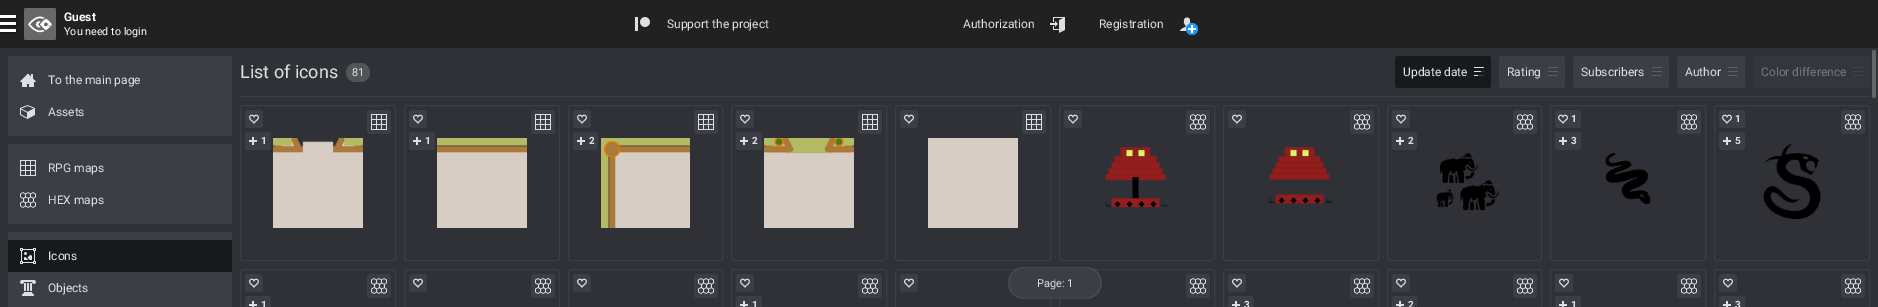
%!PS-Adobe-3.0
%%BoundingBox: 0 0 1878 307
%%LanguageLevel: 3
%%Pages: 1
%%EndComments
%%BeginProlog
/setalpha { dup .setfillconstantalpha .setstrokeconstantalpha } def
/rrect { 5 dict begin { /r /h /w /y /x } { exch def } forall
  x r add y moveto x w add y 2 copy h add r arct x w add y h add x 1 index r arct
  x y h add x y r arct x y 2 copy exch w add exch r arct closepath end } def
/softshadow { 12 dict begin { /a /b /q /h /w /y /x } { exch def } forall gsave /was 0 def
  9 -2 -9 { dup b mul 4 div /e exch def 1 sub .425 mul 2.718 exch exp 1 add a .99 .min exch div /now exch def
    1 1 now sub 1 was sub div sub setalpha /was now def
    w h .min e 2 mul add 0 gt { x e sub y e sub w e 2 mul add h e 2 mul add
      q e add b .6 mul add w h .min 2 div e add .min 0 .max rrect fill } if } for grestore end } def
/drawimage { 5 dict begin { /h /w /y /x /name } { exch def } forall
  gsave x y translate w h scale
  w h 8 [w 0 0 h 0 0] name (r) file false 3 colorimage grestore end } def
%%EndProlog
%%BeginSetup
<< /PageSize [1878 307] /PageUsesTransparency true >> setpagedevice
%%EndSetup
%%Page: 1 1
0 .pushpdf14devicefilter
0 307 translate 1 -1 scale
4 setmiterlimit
0.184 0.192 0.216 setrgbcolor
0 0 1878 307 rectfill
0.129 setgray
0 0 1878 48 rectfill
0 setgray
1 16 16 3 1 0.5 0.4 softshadow
1 setgray
newpath 0 15 moveto 15 15 lineto 15.5 15 16 15.5 16 16 curveto 16 17 lineto 16 17.5 15.5 18 15 18 curveto 0 18 lineto closepath fill
0 setgray
1 23 16 3 1 0.5 0.4 softshadow
1 setgray
newpath 0 22 moveto 15 22 lineto 15.5 22 16 22.5 16 23 curveto 16 24 lineto 16 24.5 15.5 25 15 25 curveto 0 25 lineto closepath fill
0 setgray
1 30 16 3 1 0.5 0.4 softshadow
1 setgray
newpath 0 29 moveto 15 29 lineto 15.5 29 16 29.5 16 30 curveto 16 31 lineto 16 31.5 15.5 32 15 32 curveto 0 32 lineto closepath fill
0.302 setgray
24 8 32 32 2 rrect fill
0.15 setalpha
1 setgray
24 8 32 32 2 rrect fill
1 setalpha
(images/1.raw) 28 16 24 17 drawimage
(images/2.raw) 635 17 15 14 drawimage
(images/3.raw) 1050 17 15 16 drawimage
(images/4.raw) 1180 17 11 14 drawimage
0.129 0.588 0.953 setrgbcolor
newpath 1192 29 6 0 360 arc closepath fill
(images/5.raw) 1188 25 8 8 drawimage
0.231 0.243 0.267 setrgbcolor
8 56 224 80 3 rrect fill
(images/6.raw) 20 73 16 14 drawimage
(images/7.raw) 20 105 15 14 drawimage
8 144 224 80 3 rrect fill
(images/8.raw) 20 160 16 16 drawimage
(images/9.raw) 20 192 16 16 drawimage
newpath 11 232 moveto 229 232 lineto 230.5 232 232 233.5 232 235 curveto 232 307 lineto 8 307 lineto 8 235 lineto 8 233.5 9.5 232 11 232 curveto closepath fill
0.094 0.098 0.106 setrgbcolor
8 240 224 32 rectfill
(images/10.raw) 20 248 16 16 drawimage
(images/11.raw) 20 280 16 16 drawimage
0.231 0.243 0.267 setrgbcolor
240 96 1630 1 rectfill
0.322 0.329 0.349 setrgbcolor
346 63 24 19 9.5 rrect fill
0.094 0.098 0.106 setrgbcolor
1395 56 96 32 3 rrect fill
(images/13.raw) 1477 67 7 9 drawimage
(images/12.raw) 1474 67 10 9 drawimage
0.231 0.243 0.267 setrgbcolor
1499 56 66 32 3 rrect fill
(images/14.raw) 1548 67 10 9 drawimage
1573 56 96 32 3 rrect fill
(images/14.raw) 1652 67 10 9 drawimage
1677 56 68 32 3 rrect fill
(images/14.raw) 1728 67 10 9 drawimage
0.204 0.212 0.235 setrgbcolor
1753 56 117 32 3 rrect fill
(images/15.raw) 1853 67 10 9 drawimage
0.231 0.243 0.267 setrgbcolor
240.5 105.5 155 155 2.5 rrect stroke
367 110 24 24 3 rrect fill
(images/8.raw) 371 114 16 16 drawimage
245 110 18 18 3 rrect fill
(images/16.raw) 249 114 10 10 drawimage
245 132 26 18 3 rrect fill
(images/17.raw) 249 137 8 8 drawimage
(images/18.raw) 273 138 90 90 drawimage
404.5 105.5 155 155 2.5 rrect stroke
531 110 24 24 3 rrect fill
(images/8.raw) 535 114 16 16 drawimage
409 110 18 18 3 rrect fill
(images/16.raw) 413 114 10 10 drawimage
409 132 26 18 3 rrect fill
(images/17.raw) 413 137 8 8 drawimage
(images/19.raw) 437 138 90 90 drawimage
568.5 105.5 154 155 2.5 rrect stroke
694 110 24 24 3 rrect fill
(images/8.raw) 698 114 16 16 drawimage
573 110 18 18 3 rrect fill
(images/16.raw) 577 114 10 10 drawimage
573 132 25 18 3 rrect fill
(images/17.raw) 577 137 8 8 drawimage
(images/20.raw) 601 138 89 90 drawimage
731.5 105.5 155 155 2.5 rrect stroke
858 110 24 24 3 rrect fill
(images/8.raw) 862 114 16 16 drawimage
736 110 18 18 3 rrect fill
(images/16.raw) 740 114 10 10 drawimage
736 132 26 18 3 rrect fill
(images/17.raw) 740 137 8 8 drawimage
(images/21.raw) 764 138 90 90 drawimage
895.5 105.5 155 155 2.5 rrect stroke
900 110 18 18 3 rrect fill
(images/16.raw) 904 114 10 10 drawimage
1022 110 24 24 3 rrect fill
(images/8.raw) 1026 114 16 16 drawimage
0.843 0.804 0.773 setrgbcolor
928 138 90 90 rectfill
0.231 0.243 0.267 setrgbcolor
1059.5 105.5 155 155 2.5 rrect stroke
1064 110 18 18 3 rrect fill
(images/16.raw) 1068 114 10 10 drawimage
1186 110 24 24 3 rrect fill
(images/9.raw) 1190 114 16 16 drawimage
(images/22.raw) 1105 147 64 61 drawimage
1223.5 105.5 155 155 2.5 rrect stroke
1228 110 18 18 3 rrect fill
(images/16.raw) 1232 114 10 10 drawimage
1350 110 24 24 3 rrect fill
(images/9.raw) 1354 114 16 16 drawimage
(images/23.raw) 1267 147 66 57 drawimage
1387.5 105.5 154 155 2.5 rrect stroke
1513 110 24 24 3 rrect fill
(images/9.raw) 1517 114 16 16 drawimage
1392 110 18 18 3 rrect fill
(images/16.raw) 1396 114 10 10 drawimage
1392 132 25 18 3 rrect fill
(images/17.raw) 1396 137 8 8 drawimage
(images/24.raw) 1436 153 63 58 drawimage
1550.5 105.5 155 155 2.5 rrect stroke
1555 110 26 18 3 rrect fill
(images/16.raw) 1558 114 10 10 drawimage
1555 132 26 18 3 rrect fill
(images/17.raw) 1559 137 8 8 drawimage
1677 110 24 24 3 rrect fill
(images/9.raw) 1681 114 16 16 drawimage
(images/25.raw) 1605 153 46 52 drawimage
1714.5 105.5 155 155 2.5 rrect stroke
1719 110 26 18 3 rrect fill
(images/16.raw) 1722 114 10 10 drawimage
1719 132 26 18 3 rrect fill
(images/17.raw) 1723 137 8 8 drawimage
1841 110 24 24 3 rrect fill
(images/9.raw) 1845 114 16 16 drawimage
(images/26.raw) 1763 144 58 76 drawimage
240.5 269.5 155 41 2.5 rrect stroke
367 274 24 24 3 rrect fill
(images/9.raw) 371 278 16 16 drawimage
245 274 18 18 3 rrect fill
(images/16.raw) 249 278 10 10 drawimage
245 296 26 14 3 rrect fill
(images/27.raw) 249 301 8 6 drawimage
404.5 269.5 155 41 2.5 rrect stroke
409 274 18 18 3 rrect fill
(images/16.raw) 413 278 10 10 drawimage
531 274 24 24 3 rrect fill
(images/9.raw) 535 278 16 16 drawimage
568.5 269.5 154 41 2.5 rrect stroke
573 274 18 18 3 rrect fill
(images/16.raw) 577 278 10 10 drawimage
694 274 24 24 3 rrect fill
(images/9.raw) 698 278 16 16 drawimage
731.5 269.5 155 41 2.5 rrect stroke
858 274 24 24 3 rrect fill
(images/9.raw) 862 278 16 16 drawimage
736 274 18 18 3 rrect fill
(images/16.raw) 740 278 10 10 drawimage
736 296 26 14 3 rrect fill
(images/27.raw) 740 301 8 6 drawimage
895.5 269.5 155 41 2.5 rrect stroke
900 274 18 18 3 rrect fill
(images/16.raw) 904 278 10 10 drawimage
1059.5 269.5 155 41 2.5 rrect stroke
1186 274 24 24 3 rrect fill
(images/9.raw) 1190 278 16 16 drawimage
1223.5 269.5 155 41 2.5 rrect stroke
1350 274 24 24 3 rrect fill
(images/9.raw) 1354 278 16 16 drawimage
1228 274 18 18 3 rrect fill
(images/16.raw) 1232 278 10 10 drawimage
1228 296 26 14 3 rrect fill
(images/27.raw) 1232 301 8 6 drawimage
1387.5 269.5 154 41 2.5 rrect stroke
1513 274 24 24 3 rrect fill
(images/9.raw) 1517 278 16 16 drawimage
1392 274 18 18 3 rrect fill
(images/16.raw) 1396 278 10 10 drawimage
1392 296 25 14 3 rrect fill
(images/27.raw) 1396 301 8 6 drawimage
1550.5 269.5 155 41 2.5 rrect stroke
1677 274 24 24 3 rrect fill
(images/9.raw) 1681 278 16 16 drawimage
1555 274 18 18 3 rrect fill
(images/16.raw) 1559 278 10 10 drawimage
1555 296 26 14 3 rrect fill
(images/27.raw) 1559 301 8 6 drawimage
1714.5 269.5 155 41 2.5 rrect stroke
1841 274 24 24 3 rrect fill
(images/9.raw) 1845 278 16 16 drawimage
1719 274 18 18 3 rrect fill
(images/16.raw) 1723 278 10 10 drawimage
1719 296 26 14 3 rrect fill
(images/27.raw) 1723 301 8 6 drawimage
newpath 1024 268 moveto 1025 268 lineto 1025 298 lineto 1024 298 lineto 1015.5 298 1009 291.5 1009 283 curveto 1009 274.5 1015.5 268 1024 268 curveto closepath fill
0.1 setalpha
1 setgray
newpath 1024 267 moveto 1025 267 lineto 1025 299 lineto 1002 299 1003 267 1024 267 curveto closepath 1024 268 moveto 1025 268 lineto 1025 298 lineto 1003.5 298 1004.5 268 1024 268 curveto closepath eofill
1 setalpha
0.231 0.243 0.267 setrgbcolor
1025 268 60 30 rectfill
0.267 0.275 0.294 setrgbcolor
1025 267 60 1 rectfill
0.1 setalpha
1 setgray
1025 298 60 1 rectfill
1 setalpha
0.231 0.243 0.267 setrgbcolor
newpath 1085 268 moveto 1086 268 lineto 1094.5 268 1101 274.5 1101 283 curveto 1101 291.5 1094.5 298 1086 298 curveto 1085 298 lineto closepath fill
0.1 setalpha
1 setgray
newpath 1085 267 moveto 1107.5 267 1107.5 299 1085 299 curveto closepath 1085 268 moveto 1106 268 1106 298 1085 298 curveto closepath eofill
1 setalpha
0.388 0.396 0.412 setrgbcolor
1872 50 4 48 2 rrect fill
/Roboto-Bold [12 0 0 -12 0 0] selectfont
1 setgray
64 21 moveto (Guest) show
/Roboto-Regular [10.75 0 0 -10.75 0 0] selectfont
64 35 moveto (You need to login) show
/Roboto-Regular [12 0 0 -12 0 0] selectfont
0.871 0.875 0.89 setrgbcolor
667 28 moveto (Support the project) show
963 28 moveto (Authorization) show
1099 28 moveto (Registration) show
48 84 moveto (To the main page) show
48 116 moveto (Assets) show
48 172 moveto (RPG maps) show
48 204 moveto (HEX maps) show
0.894 0.898 0.906 setrgbcolor
48 260 moveto (Icons) show
0.871 0.875 0.89 setrgbcolor
48 292 moveto (Objects) show
/Roboto-Regular [18 0 0 -18 0 0] selectfont
240 78 moveto (List of icons) show
/Roboto-Regular [11 0 0 -11 0 0] selectfont
352 76 moveto (81) show
/Roboto-Regular [12 0 0 -12 0 0] selectfont
0.894 0.898 0.906 setrgbcolor
1403 76 moveto (Update date) show
0.871 0.875 0.89 setrgbcolor
1507 76 moveto (Rating) show
1581 76 moveto (Subscribers) show
1685 76 moveto (Author) show
0.459 0.467 0.486 setrgbcolor
1761 76 moveto (Color difference) show
/Roboto-Bold [10 0 0 -10 0 0] selectfont
0.871 0.875 0.89 setrgbcolor
261 144 moveto (1) show
425 144 moveto (1) show
589 144 moveto (2) show
752 144 moveto (2) show
1408 144 moveto (2) show
1571 122 moveto (1) show
1571 144 moveto (3) show
1735 122 moveto (1) show
1735 144 moveto (5) show
261 308 moveto (1) show
752 308 moveto (1) show
1244 308 moveto (3) show
1408 308 moveto (2) show
1571 308 moveto (1) show
1735 308 moveto (3) show
/Roboto-Regular [11 0 0 -11 0 0] selectfont
1037 287 moveto (Page: 1) show
0.431 0.439 0.463 setrgbcolor
1052 287 moveto (1) show
.poppdf14devicefilter showpage
%%EOF
